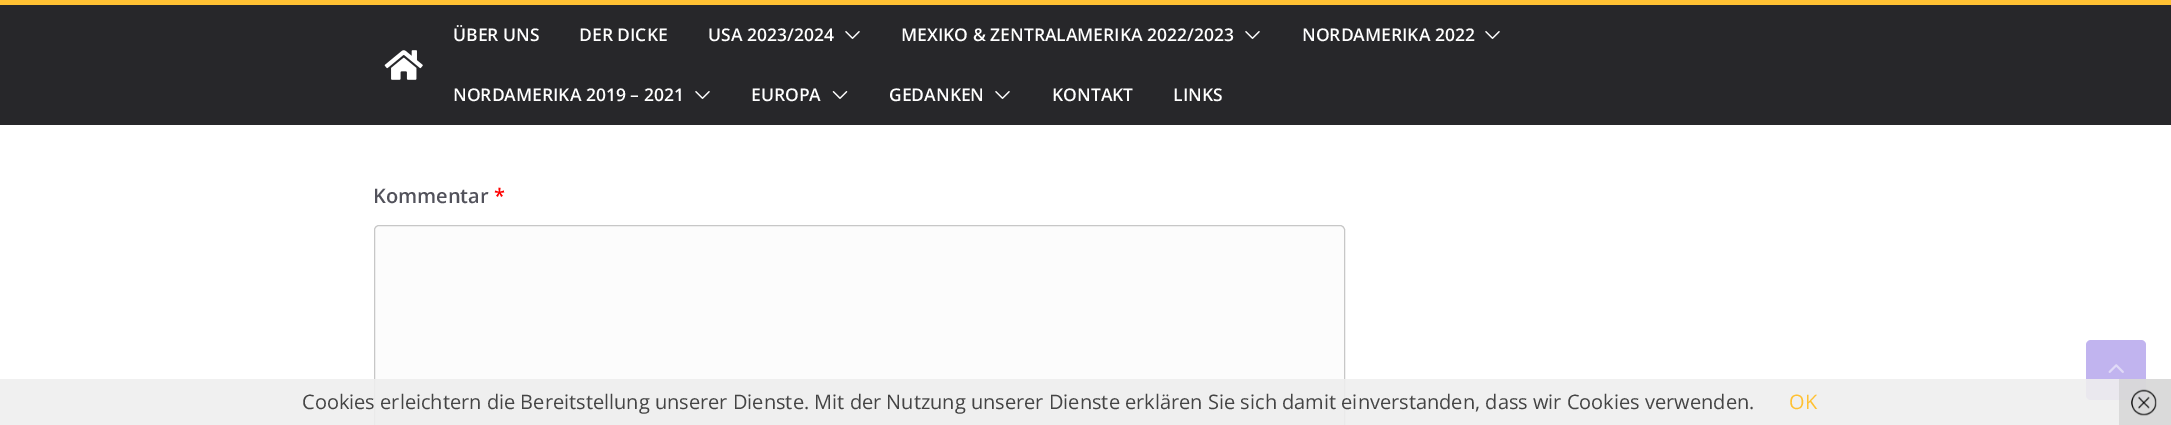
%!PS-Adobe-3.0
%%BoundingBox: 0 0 2171 425
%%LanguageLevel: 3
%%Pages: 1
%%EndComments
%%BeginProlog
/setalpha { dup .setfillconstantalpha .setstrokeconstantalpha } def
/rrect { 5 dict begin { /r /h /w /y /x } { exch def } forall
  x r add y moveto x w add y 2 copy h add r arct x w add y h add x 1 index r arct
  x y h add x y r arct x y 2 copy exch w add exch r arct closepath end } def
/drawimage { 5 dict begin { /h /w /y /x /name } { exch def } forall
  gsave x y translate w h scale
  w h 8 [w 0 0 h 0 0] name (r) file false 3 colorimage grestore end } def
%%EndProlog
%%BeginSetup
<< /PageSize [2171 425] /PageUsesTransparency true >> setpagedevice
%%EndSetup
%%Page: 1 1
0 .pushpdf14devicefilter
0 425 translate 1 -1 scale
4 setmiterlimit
1 setgray
0 0 2171 425 rectfill
0.153 0.153 0.165 setrgbcolor
0 5 2171 120 rectfill
1 0.757 0.2 setrgbcolor
0 0 2171 5 rectfill
(images/1.raw) 384 50 39 30 drawimage
(images/2.raw) 845 31 15 8 drawimage
(images/2.raw) 1245 31 15 8 drawimage
(images/2.raw) 1485 31 15 8 drawimage
(images/2.raw) 695 91 15 8 drawimage
(images/3.raw) 832 91 16 8 drawimage
(images/2.raw) 995 91 15 8 drawimage
0.988 setgray
374.5 225.5 970 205 4.5 rrect gsave fill grestore
0.78 setgray
stroke
0.757 0.706 0.937 setrgbcolor
2086 340 60 60 5 rrect fill
(images/4.raw) 2108 364 16 9 drawimage
0.9 setalpha
0.933 setgray
0 379 2171 46 rectfill
0.6 setalpha
0.8 setgray
2119 379 52 46 rectfill
1 setalpha
(images/5.raw) 2131 389 26 27 drawimage
/OpenSans-SemiBold [17.5 0 0 -17.5 0 0] selectfont
1 setgray
453 41 moveto (ÜBER UNS) show
579 41 moveto (DER DICKE) show
708 41 moveto (USA 2023/2024) show
901 41 moveto (MEXIKO & ZENTRALAMERIKA 2022/2023) show
1302 41 moveto (NORDAMERIKA 2022) show
453 101 moveto (NORDAMERIKA 2019 – 2021) show
751 101 moveto (EUROPA) show
889 101 moveto (GEDANKEN) show
1052 101 moveto (KONTAKT) show
1173 101 moveto (LINKS) show
/OpenSans-SemiBold [20 0 0 -20 0 0] selectfont
0.322 0.322 0.357 setrgbcolor
373 203 moveto (Kommentar) show
1 0 0 setrgbcolor
494 203 moveto (*) show
/OpenSans-Regular [20 0 0 -20 0 0] selectfont
0.267 setgray
302 409 moveto (Cookies erleichtern die Bereitstellung unserer Dienste. Mit der Nutzung unserer Dienste erklären Sie sich damit einverstanden, dass wir Cookies verwenden.) show
1 0.757 0.2 setrgbcolor
1789 409 moveto (OK) show
.poppdf14devicefilter showpage
%%EOF
